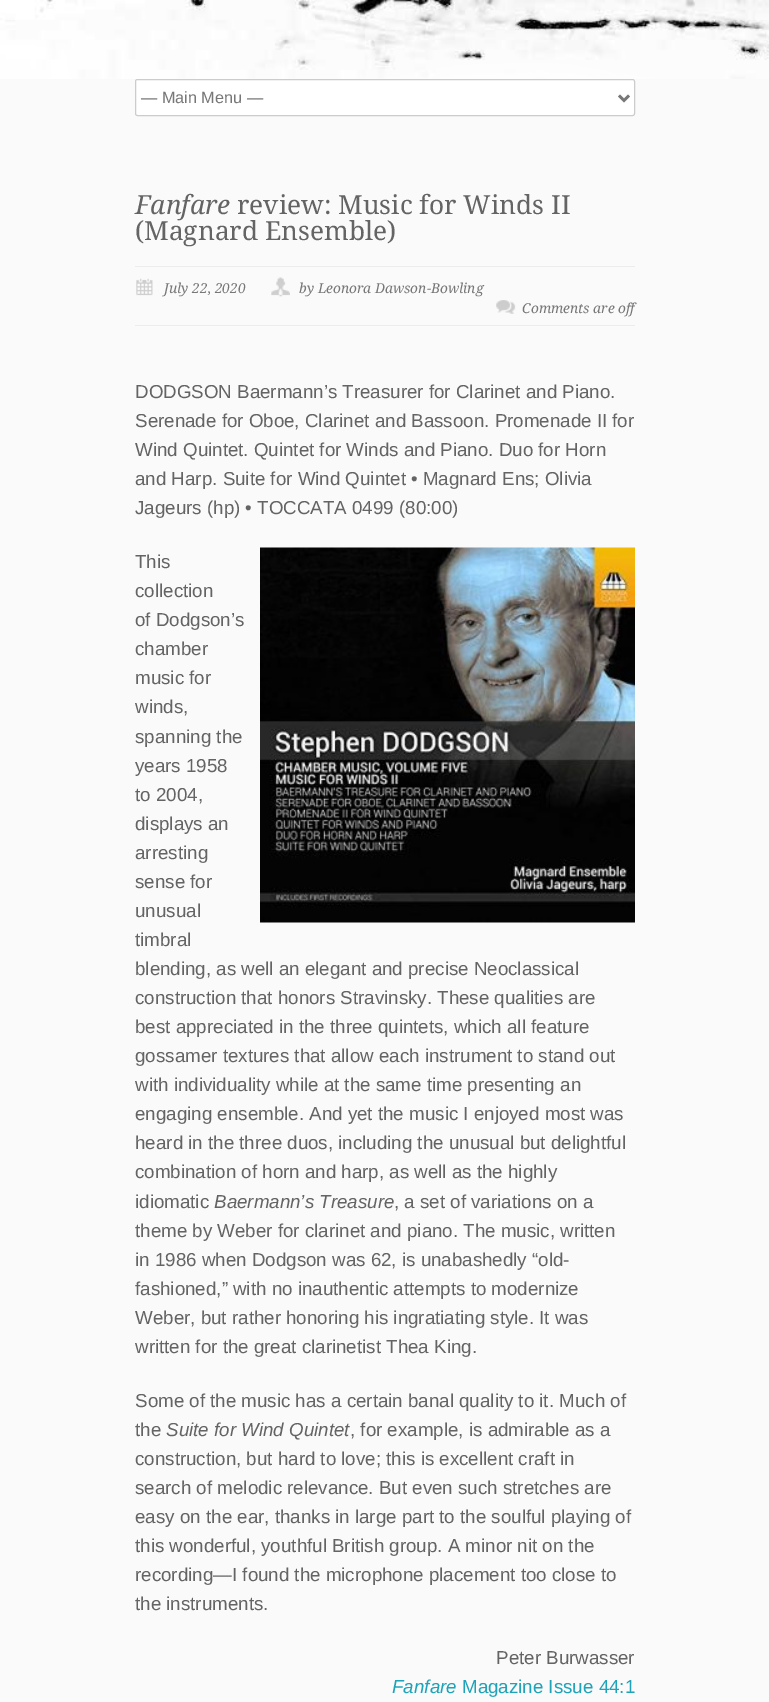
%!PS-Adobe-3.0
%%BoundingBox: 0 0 769 1702
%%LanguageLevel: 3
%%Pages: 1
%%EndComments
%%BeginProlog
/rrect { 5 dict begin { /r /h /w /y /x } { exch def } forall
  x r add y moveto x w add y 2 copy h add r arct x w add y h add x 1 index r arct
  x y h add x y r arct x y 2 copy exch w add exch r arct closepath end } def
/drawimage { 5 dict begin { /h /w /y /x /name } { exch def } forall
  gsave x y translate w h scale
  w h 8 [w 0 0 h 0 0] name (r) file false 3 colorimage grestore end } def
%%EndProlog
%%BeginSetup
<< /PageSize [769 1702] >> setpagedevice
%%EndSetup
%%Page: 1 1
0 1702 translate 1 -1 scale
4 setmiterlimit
0.98 setgray
0 0 769 1702 rectfill
(images/1.raw) 0 0 769 79 drawimage
1 setgray
135.5 79.5 499 36 2 rrect gsave fill grestore
0.8 setgray
stroke
0.467 setgray
2.5 setlinewidth
newpath 619 95.5 moveto 624 100.5 lineto 629 95.5 lineto stroke
0.925 setgray
135 266 500 1 rectfill
135 325 500 1 rectfill
(images/2.raw) 136 278 17 18 drawimage
(images/3.raw) 271 277 19 20 drawimage
(images/4.raw) 496 300 20 14 drawimage
(images/5.raw) 260 547 375 376 drawimage
/LiberationSans-Regular [16.25 0 0 -16.25 0 0] selectfont
0.467 setgray
141 103 moveto (— Main Menu —) show
/DroidSerif-Italic [26.25 0 0 -26.25 0 0] selectfont
0.392 setgray
135 214 moveto (Fanfare) show
/DroidSerif-Regular [26.25 0 0 -26.25 0 0] selectfont
237 214 moveto (review: Music for Winds II) show
135 240 moveto (\(Magnard Ensemble\)) show
/DroidSerif-Italic [13.75 0 0 -13.75 0 0] selectfont
0.467 setgray
164 293 moveto (July 22, 2020) show
299 293 moveto (by Leonora Dawson-Bowling) show
522 313 moveto (Comments are off) show
/LiberationSans-Regular [18.75 0 0 -18.75 0 0] selectfont
0.392 setgray
135 398 moveto (DODGSON Baermann’s Treasurer for Clarinet and Piano.) show
135 427 moveto (Serenade for Oboe, Clarinet and Bassoon. Promenade II for) show
135 456 moveto (Wind Quintet. Quintet for Winds and Piano. Duo for Horn) show
135 485 moveto (and Harp. Suite for Wind Quintet • Magnard Ens; Olivia) show
135 514 moveto (Jageurs \(hp\) • TOCCATA 0499 \(80:00\)) show
135 568 moveto (This) show
135 597 moveto (collection) show
135 626 moveto (of Dodgson’s) show
135 655 moveto (chamber) show
135 684 moveto (music for) show
135 713 moveto (winds,) show
135 743 moveto (spanning the) show
135 772 moveto (years 1958) show
135 801 moveto (to 2004,) show
135 830 moveto (displays an) show
135 859 moveto (arresting) show
135 888 moveto (sense for) show
135 917 moveto (unusual) show
135 946 moveto (timbral) show
135 975 moveto (blending, as well an elegant and precise Neoclassical) show
135 1004 moveto (construction that honors Stravinsky. These qualities are) show
135 1033 moveto (best appreciated in the three quintets, which all feature) show
135 1062 moveto (gossamer textures that allow each instrument to stand out) show
135 1091 moveto (with individuality while at the same time presenting an) show
135 1120 moveto (engaging ensemble. And yet the music I enjoyed most was) show
135 1149 moveto (heard in the three duos, including the unusual but delightful) show
135 1178 moveto (combination of horn and harp, as well as the highly) show
135 1208 moveto (idiomatic) show
/LiberationSans-Italic [18.75 0 0 -18.75 0 0] selectfont
214 1208 moveto (Baermann’s Treasure) show
/LiberationSans-Regular [18.75 0 0 -18.75 0 0] selectfont
394 1208 moveto (, a set of variations on a) show
135 1237 moveto (theme by Weber for clarinet and piano. The music, written) show
135 1266 moveto (in 1986 when Dodgson was 62, is unabashedly “old-) show
135 1295 moveto (fashioned,” with no inauthentic attempts to modernize) show
135 1324 moveto (Weber, but rather honoring his ingratiating style. It was) show
135 1353 moveto (written for the great clarinetist Thea King.) show
135 1407 moveto (Some of the music has a certain banal quality to it. Much of) show
135 1436 moveto (the) show
/LiberationSans-Italic [18.75 0 0 -18.75 0 0] selectfont
166 1436 moveto (Suite for Wind Quintet) show
/LiberationSans-Regular [18.75 0 0 -18.75 0 0] selectfont
350 1436 moveto (, for example, is admirable as a) show
135 1465 moveto (construction, but hard to love; this is excellent craft in) show
135 1494 moveto (search of melodic relevance. But even such stretches are) show
135 1523 moveto (easy on the ear, thanks in large part to the soulful playing of) show
135 1552 moveto (this wonderful, youthful British group. A minor nit on the) show
135 1581 moveto (recording—I found the microphone placement too close to) show
135 1610 moveto (the instruments.) show
496 1664 moveto (Peter Burwasser) show
/LiberationSans-Italic [18.75 0 0 -18.75 0 0] selectfont
0.118 0.639 0.722 setrgbcolor
392 1693 moveto (Fanfare) show
/LiberationSans-Regular [18.75 0 0 -18.75 0 0] selectfont
462 1693 moveto (Magazine Issue 44:1) show
showpage
%%EOF
